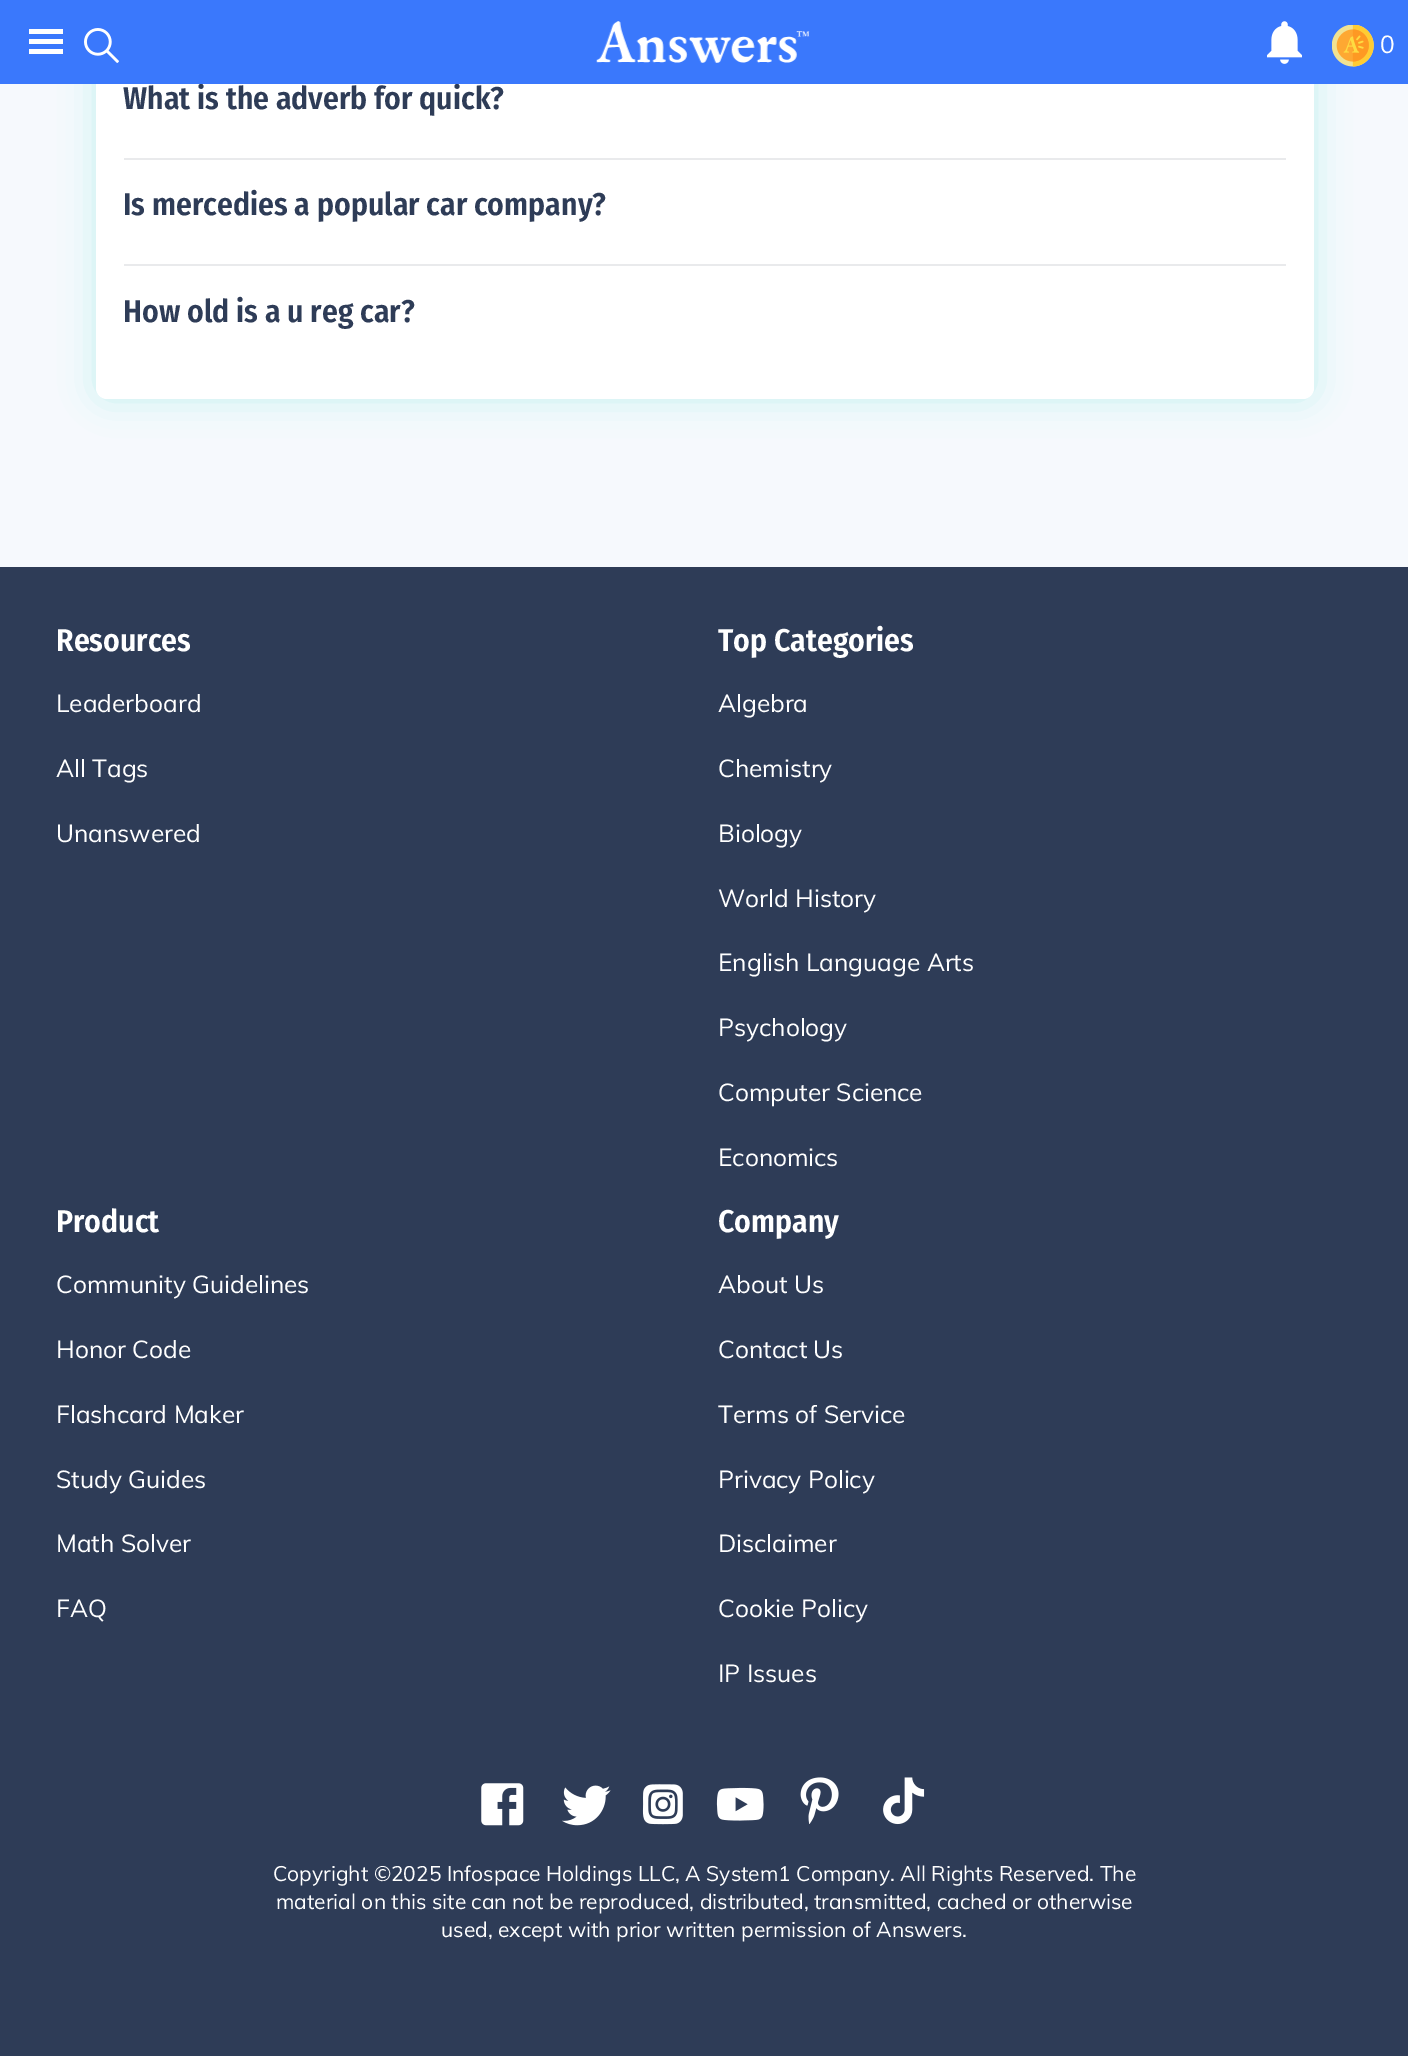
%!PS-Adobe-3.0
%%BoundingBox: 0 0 1408 2056
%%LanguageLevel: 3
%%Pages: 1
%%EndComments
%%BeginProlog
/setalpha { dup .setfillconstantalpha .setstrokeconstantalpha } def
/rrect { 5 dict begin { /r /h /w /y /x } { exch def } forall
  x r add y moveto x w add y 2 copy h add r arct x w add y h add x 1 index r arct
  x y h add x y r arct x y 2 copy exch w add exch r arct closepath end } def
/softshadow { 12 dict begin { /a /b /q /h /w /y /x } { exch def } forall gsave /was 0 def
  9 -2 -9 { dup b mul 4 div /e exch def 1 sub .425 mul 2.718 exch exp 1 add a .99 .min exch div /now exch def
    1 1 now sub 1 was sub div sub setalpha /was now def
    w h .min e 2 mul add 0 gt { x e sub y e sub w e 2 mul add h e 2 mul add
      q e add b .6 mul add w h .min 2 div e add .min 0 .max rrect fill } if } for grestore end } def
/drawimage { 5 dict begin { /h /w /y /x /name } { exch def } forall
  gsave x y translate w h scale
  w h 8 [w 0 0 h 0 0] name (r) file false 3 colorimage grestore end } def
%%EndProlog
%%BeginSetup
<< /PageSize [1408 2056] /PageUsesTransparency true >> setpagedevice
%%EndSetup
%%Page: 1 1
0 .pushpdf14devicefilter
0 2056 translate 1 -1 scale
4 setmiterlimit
0.965 0.976 0.992 setrgbcolor
0 0 1408 2056 rectfill
0 0.804 0.741 setrgbcolor
96 -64 1218 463 11 17.5 0.2 softshadow
1 setgray
96 -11 1218 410 11 rrect fill
0.914 0.918 0.925 setrgbcolor
124 158 1162 2 rectfill
124 264 1162 2 rectfill
0.18 0.235 0.341 setrgbcolor
0 567 1408 1489 rectfill
(images/5.raw) 481 1783 43 43 drawimage
(images/6.raw) 562 1785 49 41 drawimage
(images/7.raw) 642 1784 41 41 drawimage
(images/8.raw) 716 1787 48 34 drawimage
(images/9.raw) 800 1777 39 47 drawimage
(images/10.raw) 883 1777 42 48 drawimage
/FiraSansCondensed-SemiBold [31.5 0 0 -31.5 0 0] selectfont
123 109 moveto (What is the adverb for quick?) show
0.227 0.471 0.988 setrgbcolor
0 0 1408 84 rectfill
(images/3.raw) 1267 21 35 43 drawimage
(images/1.raw) 84 28 35 35 drawimage
/Muli-Regular [24.5 0 0 -24.5 0 0] selectfont
1 setgray
1380 53 moveto (0) show
(images/4.raw) 1332 25 42 42 drawimage
(images/2.raw) 596 21 214 42 drawimage
29 49 34 5 rectfill
29 39 34 5 rectfill
29 29 34 5 rectfill
/FiraSansCondensed-SemiBold [31.5 0 0 -31.5 0 0] selectfont
0.18 0.235 0.341 setrgbcolor
123 215 moveto (Is mercedies a popular car company?) show
123 322 moveto (How old is a u reg car?) show
1 setgray
56 651 moveto (Resources) show
/Muli-Regular [24.5 0 0 -24.5 0 0] selectfont
56 712 moveto (Leaderboard) show
56 777 moveto (All Tags) show
56 842 moveto (Unanswered) show
/FiraSansCondensed-SemiBold [31.5 0 0 -31.5 0 0] selectfont
718 651 moveto (Top Categories) show
/Muli-Regular [24.5 0 0 -24.5 0 0] selectfont
718 712 moveto (Algebra) show
718 777 moveto (Chemistry) show
718 842 moveto (Biology) show
718 907 moveto (World History) show
718 971 moveto (English Language Arts) show
718 1036 moveto (Psychology) show
718 1101 moveto (Computer Science) show
718 1166 moveto (Economics) show
/FiraSansCondensed-SemiBold [31.5 0 0 -31.5 0 0] selectfont
56 1232 moveto (Product) show
/Muli-Regular [24.5 0 0 -24.5 0 0] selectfont
56 1293 moveto (Community Guidelines) show
56 1358 moveto (Honor Code) show
56 1423 moveto (Flashcard Maker) show
56 1488 moveto (Study Guides) show
56 1552 moveto (Math Solver) show
56 1617 moveto (FAQ) show
/FiraSansCondensed-SemiBold [31.5 0 0 -31.5 0 0] selectfont
718 1232 moveto (Company) show
/Muli-Regular [24.5 0 0 -24.5 0 0] selectfont
718 1293 moveto (About Us) show
718 1358 moveto (Contact Us) show
718 1423 moveto (Terms of Service) show
718 1488 moveto (Privacy Policy) show
718 1552 moveto (Disclaimer) show
718 1617 moveto (Cookie Policy) show
718 1682 moveto (IP Issues) show
/Muli-Regular [21 0 0 -21 0 0] selectfont
273 1881 moveto (Copyright ©2025 Infospace Holdings LLC, A System1 Company. All Rights Reserved. The) show
276 1909 moveto (material on this site can not be reproduced, distributed, transmitted, cached or otherwise) show
441 1937 moveto (used, except with prior written permission of Answers.) show
.poppdf14devicefilter showpage
%%EOF
